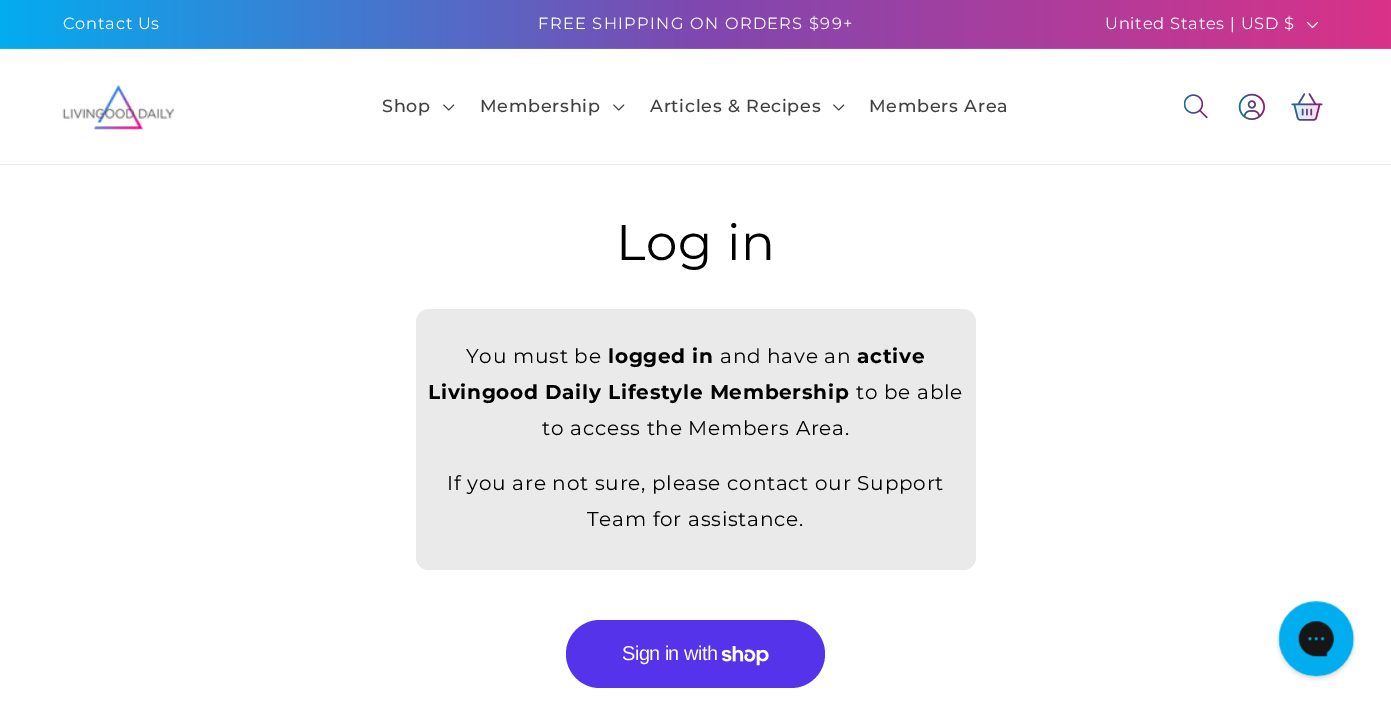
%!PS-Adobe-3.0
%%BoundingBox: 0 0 1391 710
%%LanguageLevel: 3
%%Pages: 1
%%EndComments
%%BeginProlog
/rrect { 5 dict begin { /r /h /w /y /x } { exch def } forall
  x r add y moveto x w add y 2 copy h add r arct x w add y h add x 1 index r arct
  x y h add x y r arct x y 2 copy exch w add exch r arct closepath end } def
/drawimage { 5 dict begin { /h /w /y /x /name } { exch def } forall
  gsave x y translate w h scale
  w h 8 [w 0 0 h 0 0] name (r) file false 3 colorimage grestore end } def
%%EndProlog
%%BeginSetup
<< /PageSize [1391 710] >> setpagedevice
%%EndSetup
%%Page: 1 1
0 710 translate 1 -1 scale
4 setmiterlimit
1 setgray
0 0 1391 710 rectfill
gsave newpath 0 0 moveto 1391 0 lineto 1391 48 lineto 0 48 lineto closepath clip newpath
<< /ShadingType 2 /ColorSpace /DeviceRGB /Coords [0 355 1391 355] /Extend [true true] /Function << /FunctionType 3 /Domain [0 1] /Functions [<< /FunctionType 2 /Domain [0 1] /C0 [0.012 0.675 0.941] /C1 [0.498 0.282 0.69] /N 1 >> << /FunctionType 2 /Domain [0 1] /C0 [0.498 0.282 0.69] /C1 [0.851 0.196 0.533] /N 1 >>] /Bounds [0.5] /Encode [0 1 0 1] >> >> shfill grestore
gsave newpath 0 48 moveto 1391 48 lineto 1391 49 lineto 0 49 lineto closepath clip newpath
<< /ShadingType 2 /ColorSpace /DeviceRGB /Coords [0 355 1391 355] /Extend [true true] /Function << /FunctionType 3 /Domain [0 1] /Functions [<< /FunctionType 2 /Domain [0 1] /C0 [0.09 0.702 0.945] /C1 [0.537 0.341 0.714] /N 1 >> << /FunctionType 2 /Domain [0 1] /C0 [0.537 0.341 0.714] /C1 [0.863 0.259 0.573] /N 1 >>] /Bounds [0.5] /Encode [0 1 0 1] >> >> shfill grestore
(images/1.raw) 1306 21 13 8 drawimage
0.922 setgray
0 164 1391 1 rectfill
(images/2.raw) 62 84 113 46 drawimage
(images/3.raw) 443 104 12 7 drawimage
(images/3.raw) 613 104 12 7 drawimage
(images/3.raw) 833 104 12 7 drawimage
(images/4.raw) 1184 94 24 25 drawimage
(images/5.raw) 1238 93 27 27 drawimage
(images/6.raw) 1291 93 32 28 drawimage
0.922 0.918 0.918 setrgbcolor
416 309 560 261 13 rrect fill
0.329 0.2 0.922 setrgbcolor
566 620 259 68 34 rrect fill
(images/7.raw) 721 646 48 20 drawimage
(images/8.raw) 1276 601 80 80 drawimage
/Montserrat-Regular [16.25 0 0 -16.25 0 0] selectfont
1 setgray
63 29 moveto 0.75 0 (Contact Us) ashow
538 29 moveto 1.25 0 (FREE SHIPPING ON ORDERS $99+) ashow
1105 29 moveto 0.75 0 (United States | USD $) ashow
/Montserrat-Medium [17.5 0 0 -17.5 0 0] selectfont
0.251 setgray
382 112 moveto 0.75 0 (Shop) ashow
480 112 moveto 0.75 0 (Membership) ashow
650 112 moveto 0.75 0 (Articles & Recipes) ashow
869 112 moveto 0.75 0 (Members Area) ashow
/Montserrat-Regular [50 0 0 -50 0 0] selectfont
0 setgray
616 260 moveto 0.75 0 (Log in) ashow
/Montserrat-Regular [20 0 0 -20 0 0] selectfont
466 363 moveto 0.75 0 (You must be) ashow
/Montserrat-Bold [20 0 0 -20 0 0] selectfont
608 363 moveto 0.75 0 (logged in) ashow
/Montserrat-Regular [20 0 0 -20 0 0] selectfont
720 363 moveto 0.75 0 (and have an) ashow
/Montserrat-Bold [20 0 0 -20 0 0] selectfont
857 363 moveto 0.75 0 (active) ashow
428 399 moveto 0.75 0 (Livingood Daily Lifestyle Membership) ashow
/Montserrat-Regular [20 0 0 -20 0 0] selectfont
856 399 moveto 0.75 0 (to be able) ashow
542 435 moveto 0.75 0 (to access the Members Area.) ashow
447 490 moveto 0.75 0 (If you are not sure, please contact our Support) ashow
587 526 moveto 0.75 0 (Team for assistance.) ashow
/LiberationSans-Regular [20 0 0 -20 0 0] selectfont
1 setgray
622 660 moveto -0.6 0 (Sign in with) ashow
showpage
%%EOF
